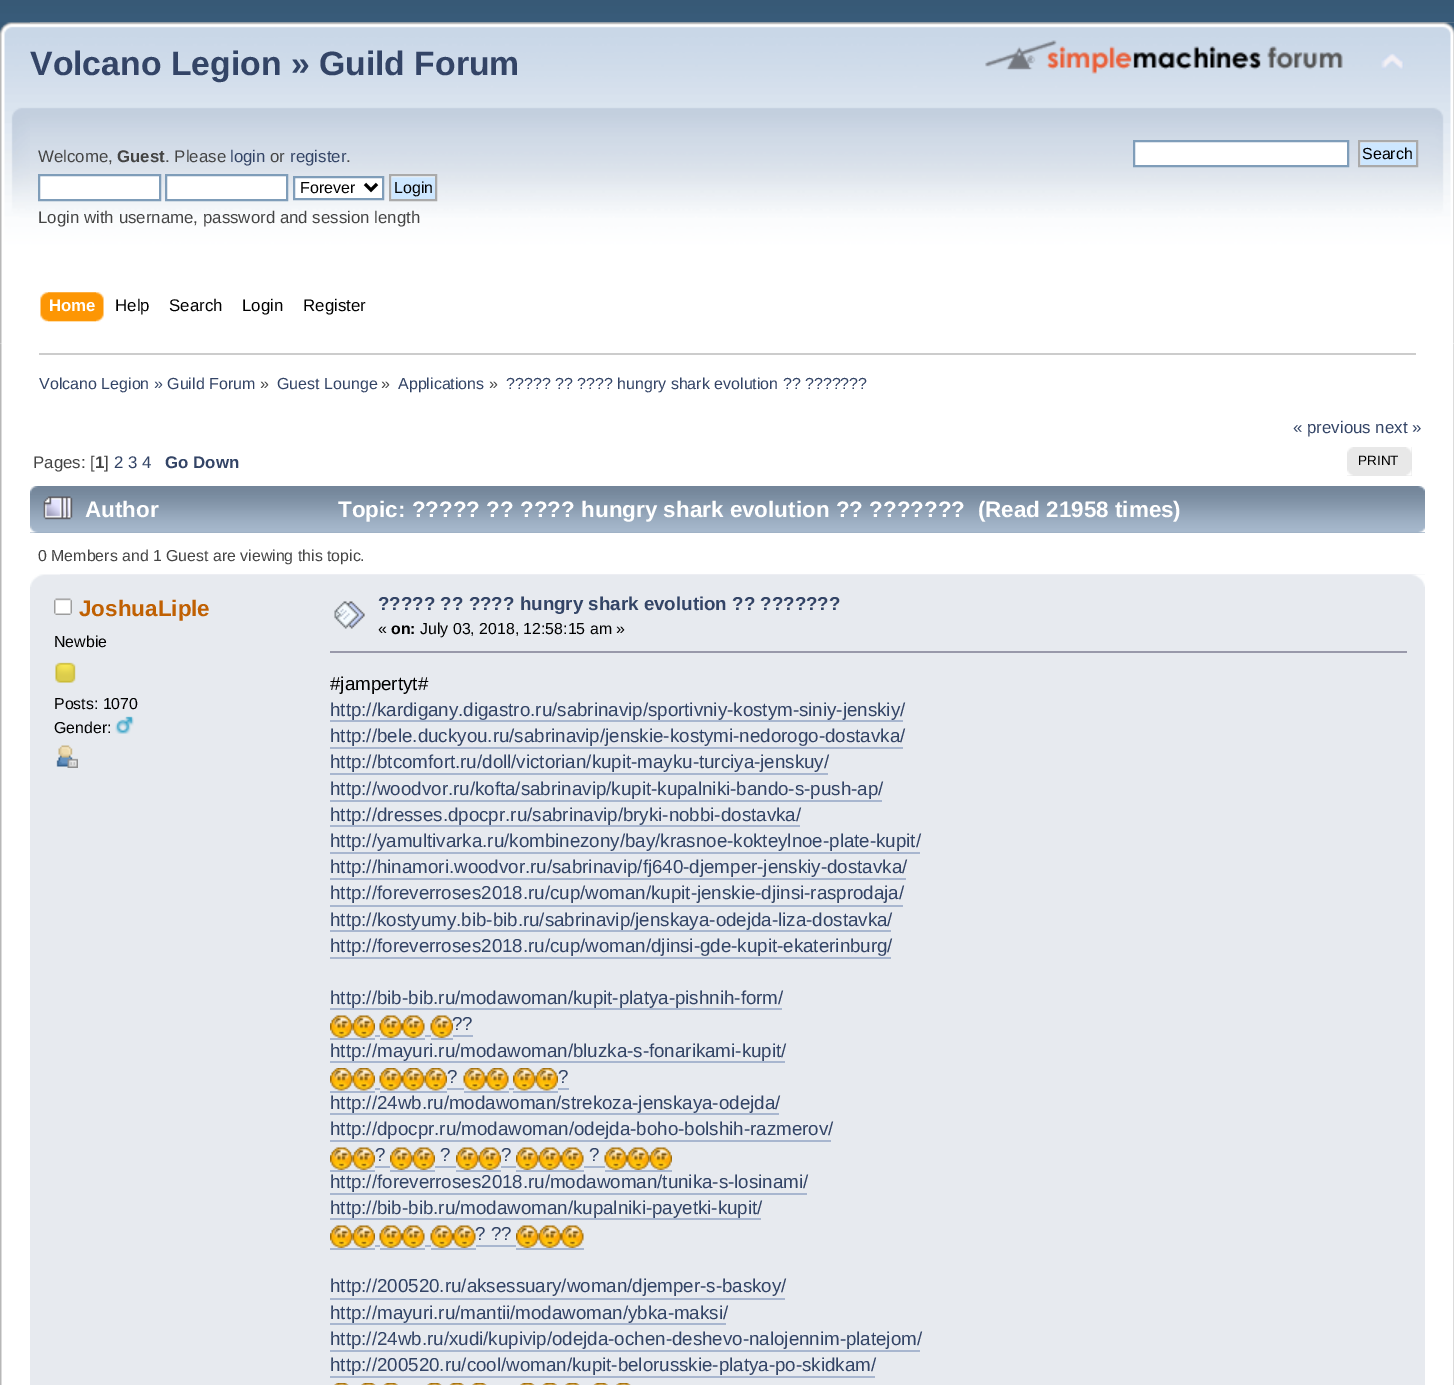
%!PS-Adobe-3.0
%%BoundingBox: 0 0 1454 1385
%%LanguageLevel: 3
%%Pages: 1
%%EndComments
%%BeginProlog
/drawimage { 5 dict begin { /h /w /y /x /name } { exch def } forall
  gsave x y translate w h scale
  w h 8 [w 0 0 h 0 0] name (r) file false 3 colorimage grestore end } def
%%EndProlog
%%BeginSetup
<< /PageSize [1454 1385] >> setpagedevice
%%EndSetup
%%Page: 1 1
0 1385 translate 1 -1 scale
4 setmiterlimit
1 setgray
0 0 1454 1385 rectfill
(images/1.raw) 0 0 1454 344 drawimage
(images/2.raw) 0 22 1454 322 drawimage
(images/3.raw) 30 22 1424 322 drawimage
(images/4.raw) 985 40 358 34 drawimage
(images/5.raw) 1381 53 23 17 drawimage
newpath 39 175 moveto 160 175 lineto 160 200 lineto 39 200 lineto closepath gsave fill grestore
0.498 0.616 0.725 setrgbcolor
2 setlinewidth
stroke
1 setgray
newpath 166 175 moveto 287 175 lineto 287 200 lineto 166 200 lineto closepath gsave fill grestore
0.498 0.616 0.725 setrgbcolor
stroke
1 setgray
newpath 294 177 moveto 383 177 lineto 383 199 lineto 294 199 lineto closepath gsave fill grestore
0.498 0.616 0.725 setrgbcolor
stroke
0 setgray
3 setlinewidth
newpath 365 184 moveto 371 190 lineto 377 184 lineto stroke
(images/6.raw) 391 176 44 23 drawimage
0.667 setgray
2 setlinewidth
390 175 46 25 rectstroke
1 setgray
newpath 1134 141 moveto 1348 141 lineto 1348 166 lineto 1134 166 lineto closepath gsave fill grestore
0.498 0.616 0.725 setrgbcolor
stroke
(images/7.raw) 1360 142 56 23 drawimage
0.667 setgray
1359 141 58 25 rectstroke
(images/8.raw) 48 292 56 30 drawimage
(images/9.raw) 40 292 56 30 drawimage
(images/10.raw) 0 343 1454 1042 drawimage
(images/11.raw) 1453 343 1 1042 drawimage
0.8 setgray
39 353 1377 2 rectfill
0.91 setgray
1347 447 65 29 rectfill
(images/12.raw) 1347 447 6 29 drawimage
(images/13.raw) 1406 447 6 29 drawimage
0.6 0.671 0.749 setrgbcolor
30 532 1395 1 rectfill
(images/14.raw) 30 486 1395 47 drawimage
(images/15.raw) 1418 486 7 47 drawimage
(images/16.raw) 43 496 30 24 drawimage
0.906 0.918 0.937 setrgbcolor
30 587 1395 798 rectfill
(images/17.raw) 30 574 1395 13 drawimage
(images/18.raw) 60 574 1365 13 drawimage
(images/19.raw) 54 598 18 17 drawimage
(images/20.raw) 55 662 21 21 drawimage
(images/21.raw) 115 716 19 18 drawimage
(images/22.raw) 56 745 22 23 drawimage
(images/23.raw) 334 601 31 28 drawimage
0.6 0.6 0.667 setrgbcolor
330 651 1077 2 rectfill
0.659 0.714 0.812 setrgbcolor
330 720 573 2 rectfill
330 747 573 2 rectfill
330 773 498 2 rectfill
330 800 552 2 rectfill
330 825 470 2 rectfill
330 852 590 2 rectfill
330 878 576 2 rectfill
330 905 573 2 rectfill
330 930 561 2 rectfill
330 957 561 2 rectfill
330 1008 452 2 rectfill
(images/24.raw) 330 1015 23 23 drawimage
(images/25.raw) 352 1015 23 23 drawimage
375 1035 5 2 rectfill
(images/26.raw) 379 1015 23 23 drawimage
(images/24.raw) 402 1015 23 23 drawimage
425 1035 6 2 rectfill
(images/26.raw) 430 1015 23 23 drawimage
330 1038 45 2 rectfill
380 1038 45 2 rectfill
431 1038 22 2 rectfill
453 1035 20 2 rectfill
330 1061 455 2 rectfill
(images/27.raw) 330 1068 23 23 drawimage
(images/28.raw) 352 1068 23 23 drawimage
375 1088 5 2 rectfill
(images/29.raw) 379 1068 23 23 drawimage
(images/27.raw) 402 1068 23 23 drawimage
(images/28.raw) 424 1068 23 23 drawimage
330 1091 45 2 rectfill
380 1091 67 2 rectfill
447 1088 17 2 rectfill
464 1091 45 2 rectfill
(images/30.raw) 463 1068 23 23 drawimage
(images/27.raw) 486 1068 23 23 drawimage
509 1088 5 2 rectfill
(images/31.raw) 513 1068 23 23 drawimage
(images/28.raw) 535 1068 23 23 drawimage
513 1091 45 2 rectfill
558 1088 11 2 rectfill
330 1113 449 2 rectfill
330 1140 501 2 rectfill
(images/24.raw) 330 1147 23 23 drawimage
(images/25.raw) 352 1147 23 23 drawimage
330 1170 45 2 rectfill
375 1166 15 2 rectfill
390 1170 45 2 rectfill
(images/24.raw) 390 1147 23 23 drawimage
(images/25.raw) 412 1147 23 23 drawimage
435 1166 21 2 rectfill
(images/24.raw) 456 1147 23 23 drawimage
(images/32.raw) 478 1147 23 23 drawimage
456 1170 45 2 rectfill
501 1166 15 2 rectfill
516 1170 68 2 rectfill
(images/33.raw) 516 1147 23 23 drawimage
(images/25.raw) 538 1147 23 23 drawimage
(images/24.raw) 561 1147 23 23 drawimage
584 1166 21 2 rectfill
605 1170 67 2 rectfill
(images/34.raw) 604 1147 23 23 drawimage
(images/33.raw) 627 1147 23 23 drawimage
(images/25.raw) 649 1147 23 23 drawimage
330 1193 477 2 rectfill
330 1218 431 2 rectfill
(images/24.raw) 330 1225 23 23 drawimage
(images/25.raw) 352 1225 23 23 drawimage
375 1245 5 2 rectfill
(images/26.raw) 379 1225 23 23 drawimage
(images/24.raw) 402 1225 23 23 drawimage
425 1245 6 2 rectfill
(images/26.raw) 430 1225 23 23 drawimage
(images/24.raw) 453 1225 23 23 drawimage
330 1248 45 2 rectfill
380 1248 45 2 rectfill
431 1248 45 2 rectfill
476 1245 40 2 rectfill
516 1248 68 2 rectfill
(images/33.raw) 516 1225 23 23 drawimage
(images/25.raw) 538 1225 23 23 drawimage
(images/24.raw) 561 1225 23 23 drawimage
330 1298 455 2 rectfill
330 1323 396 2 rectfill
330 1350 590 2 rectfill
330 1376 545 2 rectfill
(images/35.raw) 334 1383 15 2 drawimage
(images/35.raw) 361 1383 15 2 drawimage
(images/36.raw) 383 1383 15 2 drawimage
(images/35.raw) 427 1383 15 2 drawimage
(images/37.raw) 449 1383 15 2 drawimage
(images/35.raw) 472 1383 15 2 drawimage
(images/38.raw) 520 1383 15 2 drawimage
(images/36.raw) 542 1383 15 2 drawimage
(images/35.raw) 565 1383 15 2 drawimage
(images/36.raw) 593 1383 15 2 drawimage
(images/38.raw) 616 1383 15 2 drawimage
/LiberationSans-Bold [33.75 0 0 -33.75 0 0] selectfont
0.2 0.267 0.4 setrgbcolor
30 75 moveto (Volcano Legion » Guild Forum) show
/LiberationSans-Regular [16.85 0 0 -16.85 0 0] selectfont
0.267 setgray
38 162 moveto (Welcome,) show
/LiberationSans-Bold [16.85 0 0 -16.85 0 0] selectfont
117 162 moveto (Guest) show
/LiberationSans-Regular [16.85 0 0 -16.85 0 0] selectfont
165 162 moveto (. Please) show
0.2 0.267 0.4 setrgbcolor
230 162 moveto (login) show
0.267 setgray
270 162 moveto (or) show
0.2 0.267 0.4 setrgbcolor
290 162 moveto (register) show
0.267 setgray
346 162 moveto (.) show
/LiberationSans-Regular [16 0 0 -16 0 0] selectfont
0 setgray
300 193 moveto (Forever) show
394 193 moveto (Login) show
/LiberationSans-Regular [16.85 0 0 -16.85 0 0] selectfont
0.267 setgray
38 223 moveto (Login with username, password and session length) show
/LiberationSans-Regular [16 0 0 -16 0 0] selectfont
0 setgray
1362 159 moveto (Search) show
/LiberationSans-Bold [16.85 0 0 -16.85 0 0] selectfont
1 setgray
49 311 moveto (Home) show
/LiberationSans-Regular [16.85 0 0 -16.85 0 0] selectfont
0 setgray
115 311 moveto (Help) show
169 311 moveto (Search) show
242 311 moveto (Login) show
303 311 moveto (Register) show
/LiberationSans-Regular [16 0 0 -16 0 0] selectfont
0.2 0.267 0.4 setrgbcolor
39 389 moveto (Volcano Legion » Guild Forum) show
0.267 setgray
260 389 moveto (») show
0.2 0.267 0.4 setrgbcolor
277 389 moveto (Guest Lounge) show
0.267 setgray
381 389 moveto (») show
0.2 0.267 0.4 setrgbcolor
398 389 moveto (Applications) show
0.267 setgray
489 389 moveto (») show
0.2 0.267 0.4 setrgbcolor
506 389 moveto (????? ?? ???? hungry shark evolution ?? ???????) show
/LiberationSans-Regular [16.85 0 0 -16.85 0 0] selectfont
1293 433 moveto (« previous next ») show
0.267 setgray
33 468 moveto (Pages: [) show
/LiberationSans-Bold [16.85 0 0 -16.85 0 0] selectfont
95 468 moveto (1) show
/LiberationSans-Regular [16.85 0 0 -16.85 0 0] selectfont
104 468 moveto (]) show
0.2 0.267 0.4 setrgbcolor
114 468 moveto (2 3 4) show
/LiberationSans-Bold [16.85 0 0 -16.85 0 0] selectfont
165 468 moveto (Go Down) show
/LiberationSans-Regular [13.5 0 0 -13.5 0 0] selectfont
0 setgray
1358 465 moveto (PRINT) show
/LiberationSans-Bold [22.45 0 0 -22.45 0 0] selectfont
1 setgray
85 517 moveto (Author) show
338 517 moveto (Topic: ????? ?? ???? hungry shark evolution ?? ???????  \(Read 21958 times\)) show
/LiberationSans-Regular [15.9 0 0 -15.9 0 0] selectfont
0.267 setgray
38 561 moveto (0 Members and 1 Guest are viewing this topic.) show
/LiberationSans-Bold [22.45 0 0 -22.45 0 0] selectfont
0.753 0.376 0.008 setrgbcolor
79 616 moveto (JoshuaLiple) show
/LiberationSans-Regular [15.9 0 0 -15.9 0 0] selectfont
0 setgray
54 647 moveto (Newbie) show
54 709 moveto (Posts: 1070) show
54 733 moveto (Gender:) show
/LiberationSans-Bold [18.75 0 0 -18.75 0 0] selectfont
0.2 0.267 0.4 setrgbcolor
378 610 moveto (????? ?? ???? hungry shark evolution ?? ???????) show
/LiberationSans-Regular [15.9 0 0 -15.9 0 0] selectfont
0 setgray
378 634 moveto («) show
/LiberationSans-Bold [15.9 0 0 -15.9 0 0] selectfont
391 634 moveto (on:) show
/LiberationSans-Regular [15.9 0 0 -15.9 0 0] selectfont
420 634 moveto (July 03, 2018, 12:58:15 am ») show
/LiberationSans-Regular [18.75 0 0 -18.75 0 0] selectfont
330 690 moveto (#jampertyt#) show
0.2 0.267 0.4 setrgbcolor
330 716 moveto (http://kardigany.digastro.ru/sabrinavip/sportivniy-kostym-siniy-jenskiy/) show
330 742 moveto (http://bele.duckyou.ru/sabrinavip/jenskie-kostymi-nedorogo-dostavka/) show
330 768 moveto (http://btcomfort.ru/doll/victorian/kupit-mayku-turciya-jenskuy/) show
330 795 moveto (http://woodvor.ru/kofta/sabrinavip/kupit-kupalniki-bando-s-push-ap/) show
330 821 moveto (http://dresses.dpocpr.ru/sabrinavip/bryki-nobbi-dostavka/) show
330 847 moveto (http://yamultivarka.ru/kombinezony/bay/krasnoe-kokteylnoe-plate-kupit/) show
330 873 moveto (http://hinamori.woodvor.ru/sabrinavip/fj640-djemper-jenskiy-dostavka/) show
330 899 moveto (http://foreverroses2018.ru/cup/woman/kupit-jenskie-djinsi-rasprodaja/) show
330 926 moveto (http://kostyumy.bib-bib.ru/sabrinavip/jenskaya-odejda-liza-dostavka/) show
330 952 moveto (http://foreverroses2018.ru/cup/woman/djinsi-gde-kupit-ekaterinburg/) show
330 1004 moveto (http://bib-bib.ru/modawoman/kupit-platya-pishnih-form/) show
452 1030 moveto (??) show
330 1057 moveto (http://mayuri.ru/modawoman/bluzka-s-fonarikami-kupit/) show
447 1083 moveto (?) show
558 1083 moveto (?) show
330 1109 moveto (http://24wb.ru/modawoman/strekoza-jenskaya-odejda/) show
330 1135 moveto (http://dpocpr.ru/modawoman/odejda-boho-bolshih-razmerov/) show
375 1161 moveto (?) show
440 1161 moveto (?) show
501 1161 moveto (?) show
589 1161 moveto (?) show
330 1188 moveto (http://foreverroses2018.ru/modawoman/tunika-s-losinami/) show
330 1214 moveto (http://bib-bib.ru/modawoman/kupalniki-payetki-kupit/) show
475 1240 moveto (? ??) show
330 1292 moveto (http://200520.ru/aksessuary/woman/djemper-s-baskoy/) show
330 1319 moveto (http://mayuri.ru/mantii/modawoman/ybka-maksi/) show
330 1345 moveto (http://24wb.ru/xudi/kupivip/odejda-ochen-deshevo-nalojennim-platejom/) show
330 1371 moveto (http://200520.ru/cool/woman/kupit-belorusskie-platya-po-skidkam/) show
showpage
%%EOF
